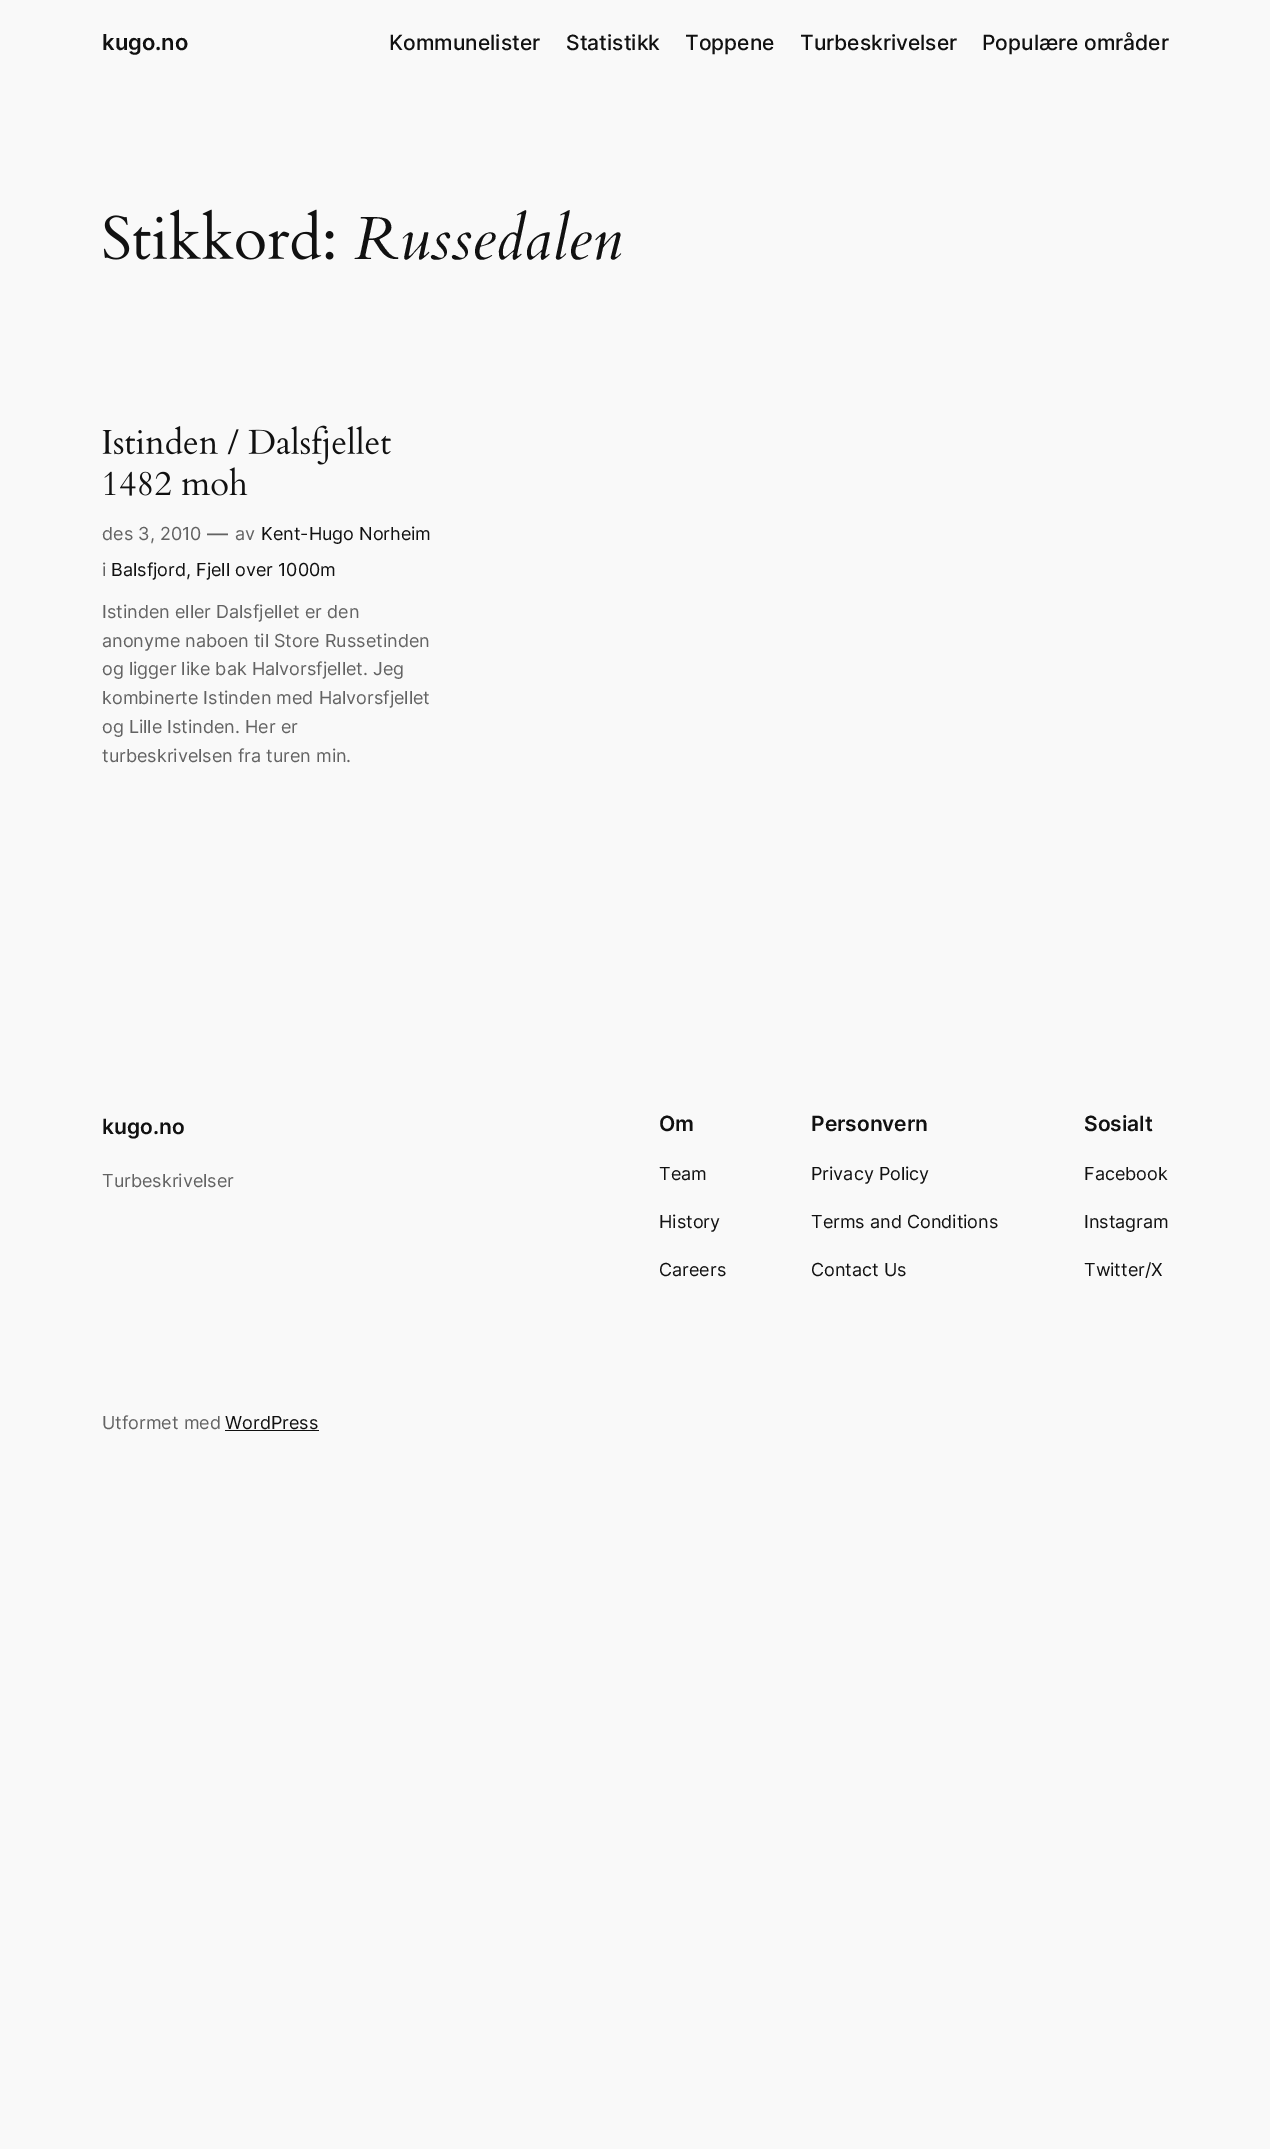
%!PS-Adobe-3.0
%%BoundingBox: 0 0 1270 2149
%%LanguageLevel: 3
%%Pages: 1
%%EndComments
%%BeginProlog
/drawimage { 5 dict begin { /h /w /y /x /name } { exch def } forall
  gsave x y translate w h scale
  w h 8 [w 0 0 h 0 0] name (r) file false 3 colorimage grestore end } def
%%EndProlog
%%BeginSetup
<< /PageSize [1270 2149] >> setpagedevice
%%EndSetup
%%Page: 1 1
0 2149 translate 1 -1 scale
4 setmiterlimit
0.976 setgray
0 0 1270 2149 rectfill
(images/1.raw) 103 209 231 51 drawimage
(images/2.raw) 102 425 289 40 drawimage
(images/3.raw) 104 467 144 29 drawimage
0.067 setgray
225 1430 94 1 rectfill
/Inter-SemiBold [22 0 0 -22 0 0] selectfont
102 50 moveto (kugo.no) show
/Inter-Medium [21 0 0 -21 0 0] selectfont
389 50 moveto (Kommunelister) show
566 50 moveto (Statistikk) show
685 50 moveto (Toppene) show
800 50 moveto (Turbeskrivelser) show
982 50 moveto (Populære områder) show
/Cardo-Italic [61 0 0 -61 0 0] selectfont
354 259 moveto (Russedalen) show
/Inter-Regular [18 0 0 -18 0 0] selectfont
0.388 setgray
102 540 moveto (des 3, 2010) show
/Inter-Regular [21 0 0 -21 0 0] selectfont
207 541 moveto (—) show
/Inter-Regular [18 0 0 -18 0 0] selectfont
235 540 moveto (av) show
0.067 setgray
261 540 moveto (Kent-Hugo Norheim) show
0.388 setgray
102 576 moveto (i) show
0.067 setgray
111 576 moveto (Balsfjord, Fjell over 1000m) show
0.388 setgray
102 618 moveto (Istinden eller Dalsfjellet er den) show
102 647 moveto (anonyme naboen til Store Russetinden) show
102 675 moveto (og ligger like bak Halvorsfjellet. Jeg) show
102 704 moveto (kombinerte Istinden med Halvorsfjellet) show
102 733 moveto (og Lille Istinden. Her er) show
102 762 moveto (turbeskrivelsen fra turen min.) show
/Inter-SemiBold [21 0 0 -21 0 0] selectfont
0.067 setgray
102 1134 moveto (kugo.no) show
/Inter-Regular [18 0 0 -18 0 0] selectfont
0.388 setgray
102 1187 moveto (Turbeskrivelser) show
/Inter-SemiBold [21 0 0 -21 0 0] selectfont
0.067 setgray
659 1131 moveto (Om) show
/Inter-Regular [18 0 0 -18 0 0] selectfont
659 1180 moveto (Team) show
659 1228 moveto (History) show
659 1276 moveto (Careers) show
/Inter-SemiBold [21 0 0 -21 0 0] selectfont
811 1131 moveto (Personvern) show
/Inter-Regular [18 0 0 -18 0 0] selectfont
811 1180 moveto (Privacy Policy) show
811 1228 moveto (Terms and Conditions) show
811 1276 moveto (Contact Us) show
/Inter-SemiBold [21 0 0 -21 0 0] selectfont
1084 1131 moveto (Sosialt) show
/Inter-Regular [18 0 0 -18 0 0] selectfont
1084 1180 moveto (Facebook) show
1084 1228 moveto (Instagram) show
1084 1276 moveto (Twitter/X) show
0.388 setgray
102 1429 moveto (Utformet med) show
0.067 setgray
225 1429 moveto (WordPress) show
showpage
%%EOF
